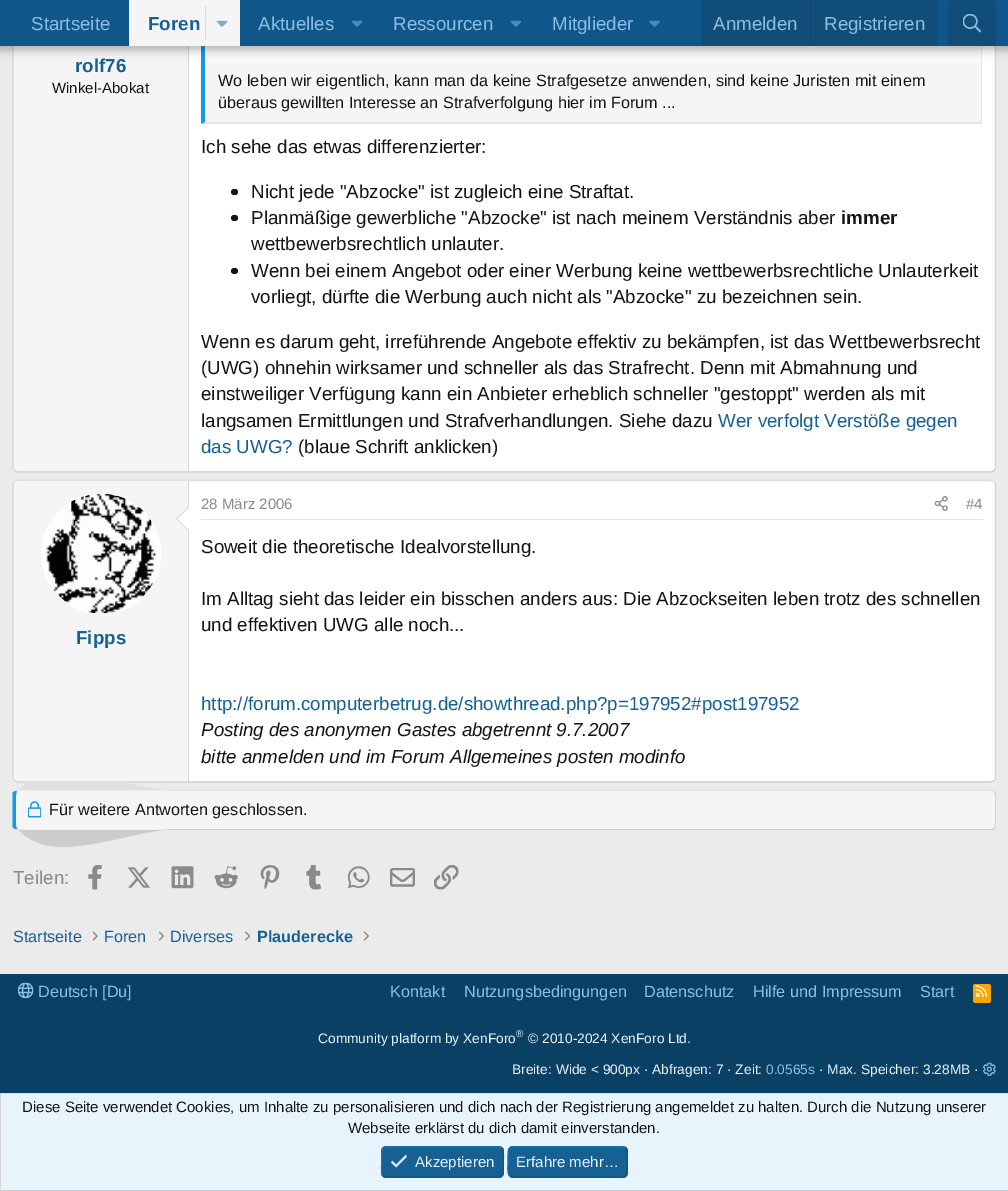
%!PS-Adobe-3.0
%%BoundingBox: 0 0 1008 1191
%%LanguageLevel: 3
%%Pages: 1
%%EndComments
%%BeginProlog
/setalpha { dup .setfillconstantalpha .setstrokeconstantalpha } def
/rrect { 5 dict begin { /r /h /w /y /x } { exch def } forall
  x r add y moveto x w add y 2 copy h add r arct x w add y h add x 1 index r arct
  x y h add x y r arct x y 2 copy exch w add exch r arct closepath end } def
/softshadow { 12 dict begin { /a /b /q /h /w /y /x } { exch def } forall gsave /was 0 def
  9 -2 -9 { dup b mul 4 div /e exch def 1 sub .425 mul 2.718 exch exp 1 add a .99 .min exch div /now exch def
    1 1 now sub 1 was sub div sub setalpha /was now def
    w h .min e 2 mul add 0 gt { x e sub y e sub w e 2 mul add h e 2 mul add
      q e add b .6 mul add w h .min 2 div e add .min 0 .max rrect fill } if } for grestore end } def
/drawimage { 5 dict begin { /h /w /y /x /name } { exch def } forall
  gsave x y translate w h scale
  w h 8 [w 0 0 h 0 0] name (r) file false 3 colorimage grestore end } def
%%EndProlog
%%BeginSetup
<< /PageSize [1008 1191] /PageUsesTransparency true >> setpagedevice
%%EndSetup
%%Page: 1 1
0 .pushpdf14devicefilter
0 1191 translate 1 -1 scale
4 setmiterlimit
0.922 setgray
0 0 1008 1191 rectfill
1 setgray
13 -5 983 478 5 rrect fill
0.839 setgray
1.2 setlinewidth
newpath 994.5 -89.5 moveto 995 -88.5 995.5 -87.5 995.5 -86 curveto 995.5 467.5 lineto 995.5 468.5 995 470 994.5 470.5 curveto stroke
0.8 setgray
newpath 994.5 470.5 moveto 991 472 lineto 17.5 472 lineto 14.5 470.5 lineto stroke
0.839 setgray
newpath 14.5 470.5 moveto 13.5 470 13 468.5 13 467.5 curveto 13 -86 lineto 13 -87.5 13.5 -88.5 14.5 -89.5 curveto stroke
0.961 setgray
newpath 18 -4 moveto 189 -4 lineto 189 471 lineto 18 471 lineto 16 471 14 469 14 467 curveto 14 0 lineto 14 -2 16 -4 18 -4 curveto closepath fill
0.839 setgray
188 46 1 425 rectfill
0.961 setgray
205 63 776 59 rectfill
0.898 setgray
981 46 1 78 rectfill
newpath 982 124 moveto 201 124 lineto 205 122 lineto 981 122 lineto closepath fill
0.09 0.604 0.902 setrgbcolor
newpath 201 124 moveto 201 22 lineto 205 24 lineto 205 122 lineto closepath fill
0.98 setgray
205 46 776 17 rectfill
0 setgray
-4 -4 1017 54 0 5 0.3 softshadow
0.059 0.341 0.541 setrgbcolor
0 0 1008 46 rectfill
0.961 setgray
129 0 111 46 rectfill
0.808 0.859 0.894 setrgbcolor
205 6 1 34 rectfill
(images/1.raw) 216 20 12 7 drawimage
(images/2.raw) 351 20 12 7 drawimage
(images/3.raw) 510 20 11 7 drawimage
(images/4.raw) 649 20 11 7 drawimage
0.063 0.302 0.471 setrgbcolor
701 0 237 46 rectfill
0.067 0.267 0.412 setrgbcolor
810 0 1 46 rectfill
0.063 0.302 0.471 setrgbcolor
newpath 953 0 moveto 991 0 lineto 994 0 996 2 996 5 curveto 996 46 lineto 948 46 lineto 948 5 lineto 948 2 950 0 953 0 curveto closepath fill
(images/5.raw) 963 14 18 19 drawimage
0.078 setgray
231 189 7 6 3 rrect fill
231 215 7 6 3 rrect fill
231 268 7 6 3 rrect fill
1 setgray
13 480 983 303 5 rrect fill
0.878 setgray
newpath 14.5 482 moveto 17.5 480.5 lineto 991 480.5 lineto 994.5 482 lineto stroke
0.839 setgray
newpath 994.5 482 moveto 995 482.5 995.5 484 995.5 485 curveto 995.5 777.5 lineto 995.5 778.5 995 780 994.5 780.5 curveto stroke
0.8 setgray
newpath 994.5 780.5 moveto 991 782 lineto 17.5 782 lineto 14.5 780.5 lineto stroke
0.839 setgray
newpath 14.5 780.5 moveto 13.5 780 13 778.5 13 777.5 curveto 13 485 lineto 13 484 13.5 482.5 14.5 482 curveto stroke
0.961 setgray
newpath 18 791 moveto 991 791 lineto 993 791 995 793 995 795 curveto 995 825 lineto 995 827 993 829 991 829 curveto 18 829 lineto 17 829 16 827 16 825 curveto 16 795 lineto 16 793 17 791 18 791 curveto closepath fill
0.878 setgray
newpath 18 790 moveto 15 791 lineto 17 792 lineto 52 750 126 791 180 791 curveto 991 791 lineto 994 792 lineto 995 792 lineto 994 791 993 790 991 790 curveto closepath fill
0.961 setgray
newpath 18 481 moveto 189 481 lineto 189 781 lineto 18 781 lineto 16 781 14 779 14 777 curveto 14 485 lineto 14 483 16 481 18 481 curveto closepath fill
0.839 setgray
188 481 1 300 rectfill
1 setgray
newpath 101 554 60 0 360 arc closepath fill
(images/6.raw) 46 493 111 121 drawimage
0.839 setgray
newpath 189 506 moveto 189 531 lineto 176 519 lineto closepath fill
1 setgray
newpath 189 507.5 moveto 189 530 lineto 177.5 519 lineto closepath fill
0.898 setgray
201 519 782 1 rectfill
(images/7.raw) 934 496 14 15 drawimage
0.839 setgray
newpath 994.5 791.5 moveto 995.5 792.5 996 793.5 996 795 curveto 996 825 lineto 996 826.5 995.5 827.5 994.5 828.5 curveto 994 827.5 lineto 994.5 827 995 826 995 825 curveto 995 795 lineto 995 794 994.5 793 994 792.5 curveto closepath fill
0.8 setgray
newpath 18 830 moveto 991 830 lineto 993 830 994 829 995 828 curveto 994 828 lineto 991 829 lineto 180 829 lineto 126 829 52 870 17 828 curveto 15 829 lineto closepath fill
0.09 0.604 0.902 setrgbcolor
newpath 12.5 793 moveto 13 792 14 791.5 15 791 curveto 17 791.5 lineto 16.5 792.5 16 793.5 16 795 curveto 16 825 lineto 16 826.5 16.5 827.5 17 828.5 curveto 15 829 lineto 14 828.5 13 828 12.5 827 curveto closepath fill
(images/8.raw) 28 801 13 17 drawimage
(images/9.raw) 88 865 14 25 drawimage
(images/10.raw) 127 867 23 21 drawimage
(images/11.raw) 171 866 23 23 drawimage
(images/12.raw) 214 866 24 23 drawimage
(images/13.raw) 260 865 20 25 drawimage
(images/14.raw) 306 865 16 25 drawimage
(images/15.raw) 347 866 23 23 drawimage
(images/16.raw) 390 868 25 19 drawimage
(images/17.raw) 434 865 25 25 drawimage
(images/18.raw) 93 931 5 10 drawimage
(images/19.raw) 159 931 5 10 drawimage
(images/20.raw) 245 931 5 10 drawimage
(images/19.raw) 364 931 5 10 drawimage
0.043 0.251 0.396 setrgbcolor
0 974 1008 119 rectfill
(images/21.raw) 17 982 17 17 drawimage
1 0.647 0 setrgbcolor
973 984 18 19 2.5 rrect fill
(images/22.raw) 975 985 13 12 drawimage
(images/23.raw) 983 1062 13 14 drawimage
0.91 0.957 0.988 setrgbcolor
1 1094 1007 96 rectfill
0.878 setgray
0 1093 1008 1 rectfill
0.8 setgray
0 1190 1008 1 rectfill
0.839 setgray
0 1093 1 98 rectfill
0.09 0.376 0.576 setrgbcolor
381 1146 123 32 5 rrect fill
0.078 0.322 0.49 setrgbcolor
newpath 502 1148 moveto 504.5 1151 503 1162 503 1165.5 curveto 503 1169 504.5 1177 499 1177 curveto 386 1177 lineto 383 1175.5 lineto stroke
0.102 0.431 0.663 setrgbcolor
newpath 383 1175.5 moveto 380.5 1173 382 1162 382 1158.5 curveto 382 1155 380.5 1147 386 1147 curveto 499 1147 lineto 502 1148 lineto stroke
(images/24.raw) 391 1154 16 14 drawimage
0.09 0.376 0.576 setrgbcolor
508 1146 120 32 5 rrect fill
0.078 0.322 0.49 setrgbcolor
newpath 625.5 1148 moveto 628 1151 627 1158.5 627 1162 curveto 627 1181.5 627.5 1177 604 1177 curveto 512.5 1177 lineto 509.5 1175.5 lineto stroke
0.102 0.431 0.663 setrgbcolor
newpath 509.5 1175.5 moveto 507 1173 508 1165 508 1162 curveto 508 1142.5 507.5 1147 531 1147 curveto 622.5 1147 lineto 625.5 1148 lineto stroke
/LiberationSans-Regular [18.75 0 0 -18.75 0 0] selectfont
0.545 0.741 0.878 setrgbcolor
31 30 moveto (Startseite) show
/LiberationSans-Bold [18.75 0 0 -18.75 0 0] selectfont
0.09 0.376 0.576 setrgbcolor
148 30 moveto (Foren) show
/LiberationSans-Regular [18.75 0 0 -18.75 0 0] selectfont
0.545 0.741 0.878 setrgbcolor
258 30 moveto (Aktuelles) show
393 30 moveto (Ressourcen) show
552 30 moveto (Mitglieder) show
713 30 moveto (Anmelden) show
824 30 moveto (Registrieren) show
/LiberationSans-Bold [18.75 0 0 -18.75 0 0] selectfont
0.09 0.376 0.576 setrgbcolor
75 72 moveto (rolf76) show
/LiberationSans-Regular [15 0 0 -15 0 0] selectfont
0.078 setgray
52 93 moveto (Winkel-Abokat) show
/LiberationSans-Regular [16.25 0 0 -16.25 0 0] selectfont
218 86 moveto (Wo leben wir eigentlich, kann man da keine Strafgesetze anwenden, sind keine Juristen mit einem) show
218 108 moveto (überaus gewillten Interesse an Strafverfolgung hier im Forum ...) show
/LiberationSans-Regular [18.75 0 0 -18.75 0 0] selectfont
201 153 moveto (Ich sehe das etwas differenzierter:) show
251 198 moveto (Nicht jede "Abzocke" ist zugleich eine Straftat.) show
251 224 moveto (Planmäßige gewerbliche "Abzocke" ist nach meinem Verständnis aber) show
/LiberationSans-Bold [18.75 0 0 -18.75 0 0] selectfont
841 224 moveto (immer) show
/LiberationSans-Regular [18.75 0 0 -18.75 0 0] selectfont
251 250 moveto (wettbewerbsrechtlich unlauter.) show
251 277 moveto (Wenn bei einem Angebot oder einer Werbung keine wettbewerbsrechtliche Unlauterkeit) show
251 303 moveto (vorliegt, dürfte die Werbung auch nicht als "Abzocke" zu bezeichnen sein.) show
201 348 moveto (Wenn es darum geht, irreführende Angebote effektiv zu bekämpfen, ist das Wettbewerbsrecht) show
201 374 moveto (\(UWG\) ohnehin wirksamer und schneller als das Strafrecht. Denn mit Abmahnung und) show
201 400 moveto (einstweiliger Verfügung kann ein Anbieter erheblich schneller "gestoppt" werden als mit) show
201 427 moveto (langsamen Ermittlungen und Strafverhandlungen. Siehe dazu) show
0.09 0.376 0.576 setrgbcolor
718 427 moveto (Wer verfolgt Verstöße gegen) show
201 453 moveto (das UWG?) show
0.078 setgray
298 453 moveto (\(blaue Schrift anklicken\)) show
/LiberationSans-Bold [18.75 0 0 -18.75 0 0] selectfont
0.09 0.376 0.576 setrgbcolor
76 644 moveto (Fipps) show
/LiberationSans-Regular [15 0 0 -15 0 0] selectfont
0.541 setgray
201 509 moveto (28 März 2006) show
966 509 moveto (#4) show
/LiberationSans-Regular [18.75 0 0 -18.75 0 0] selectfont
0.078 setgray
201 553 moveto (Soweit die theoretische Idealvorstellung.) show
201 605 moveto (Im Alltag sieht das leider ein bisschen anders aus: Die Abzockseiten leben trotz des schnellen) show
201 631 moveto (und effektiven UWG alle noch...) show
0.09 0.376 0.576 setrgbcolor
201 710 moveto (http://forum.computerbetrug.de/showthread.php?p=197952#post197952) show
/LiberationSans-Italic [18.75 0 0 -18.75 0 0] selectfont
0.078 setgray
201 736 moveto (Posting des anonymen Gastes abgetrennt 9.7.2007) show
201 763 moveto (bitte anmelden und im Forum Allgemeines posten modinfo) show
/LiberationSans-Regular [16.25 0 0 -16.25 0 0] selectfont
49 815 moveto (Für weitere Antworten geschlossen.) show
/LiberationSans-Regular [18.75 0 0 -18.75 0 0] selectfont
0.541 setgray
13 884 moveto (Teilen:) show
/LiberationSans-Regular [16.25 0 0 -16.25 0 0] selectfont
0.09 0.376 0.576 setrgbcolor
13 942 moveto (Startseite) show
104 942 moveto (Foren) show
170 942 moveto (Diverses) show
/LiberationSans-Bold [16.25 0 0 -16.25 0 0] selectfont
257 942 moveto (Plauderecke) show
/LiberationSans-Regular [16.25 0 0 -16.25 0 0] selectfont
0.545 0.741 0.878 setrgbcolor
38 997 moveto (Deutsch [Du]) show
390 997 moveto (Kontakt) show
464 997 moveto (Nutzungsbedingungen) show
644 997 moveto (Datenschutz) show
753 997 moveto (Hilfe und Impressum) show
920 997 moveto (Start) show
/LiberationSans-Regular [13.75 0 0 -13.75 0 0] selectfont
0.91 0.957 0.988 setrgbcolor
318 1043 moveto (Community platform by XenForo) show
/LiberationSans-Regular [10 0 0 -10 0 0] selectfont
516 1037 moveto (®) show
/LiberationSans-Regular [13.75 0 0 -13.75 0 0] selectfont
528 1043 moveto (© 2010-2024 XenForo Ltd.) show
512 1074 moveto (Breite: Wide < 900px · Abfragen: 7 · Zeit:) show
0.545 0.741 0.878 setrgbcolor
766 1074 moveto (0.0565s) show
0.91 0.957 0.988 setrgbcolor
819 1074 moveto (· Max. Speicher: 3.28MB ·) show
/LiberationSans-Regular [15 0 0 -15 0 0] selectfont
0.078 setgray
22 1112 moveto (Diese Seite verwendet Cookies, um Inhalte zu personalisieren und dich nach der Registrierung angemeldet zu halten. Durch die Nutzung unserer) show
348 1133 moveto (Webseite erklärst du dich damit einverstanden.) show
0.91 0.957 0.988 setrgbcolor
415 1167 moveto (Akzeptieren) show
516 1167 moveto (Erfahre mehr…) show
.poppdf14devicefilter showpage
%%EOF
